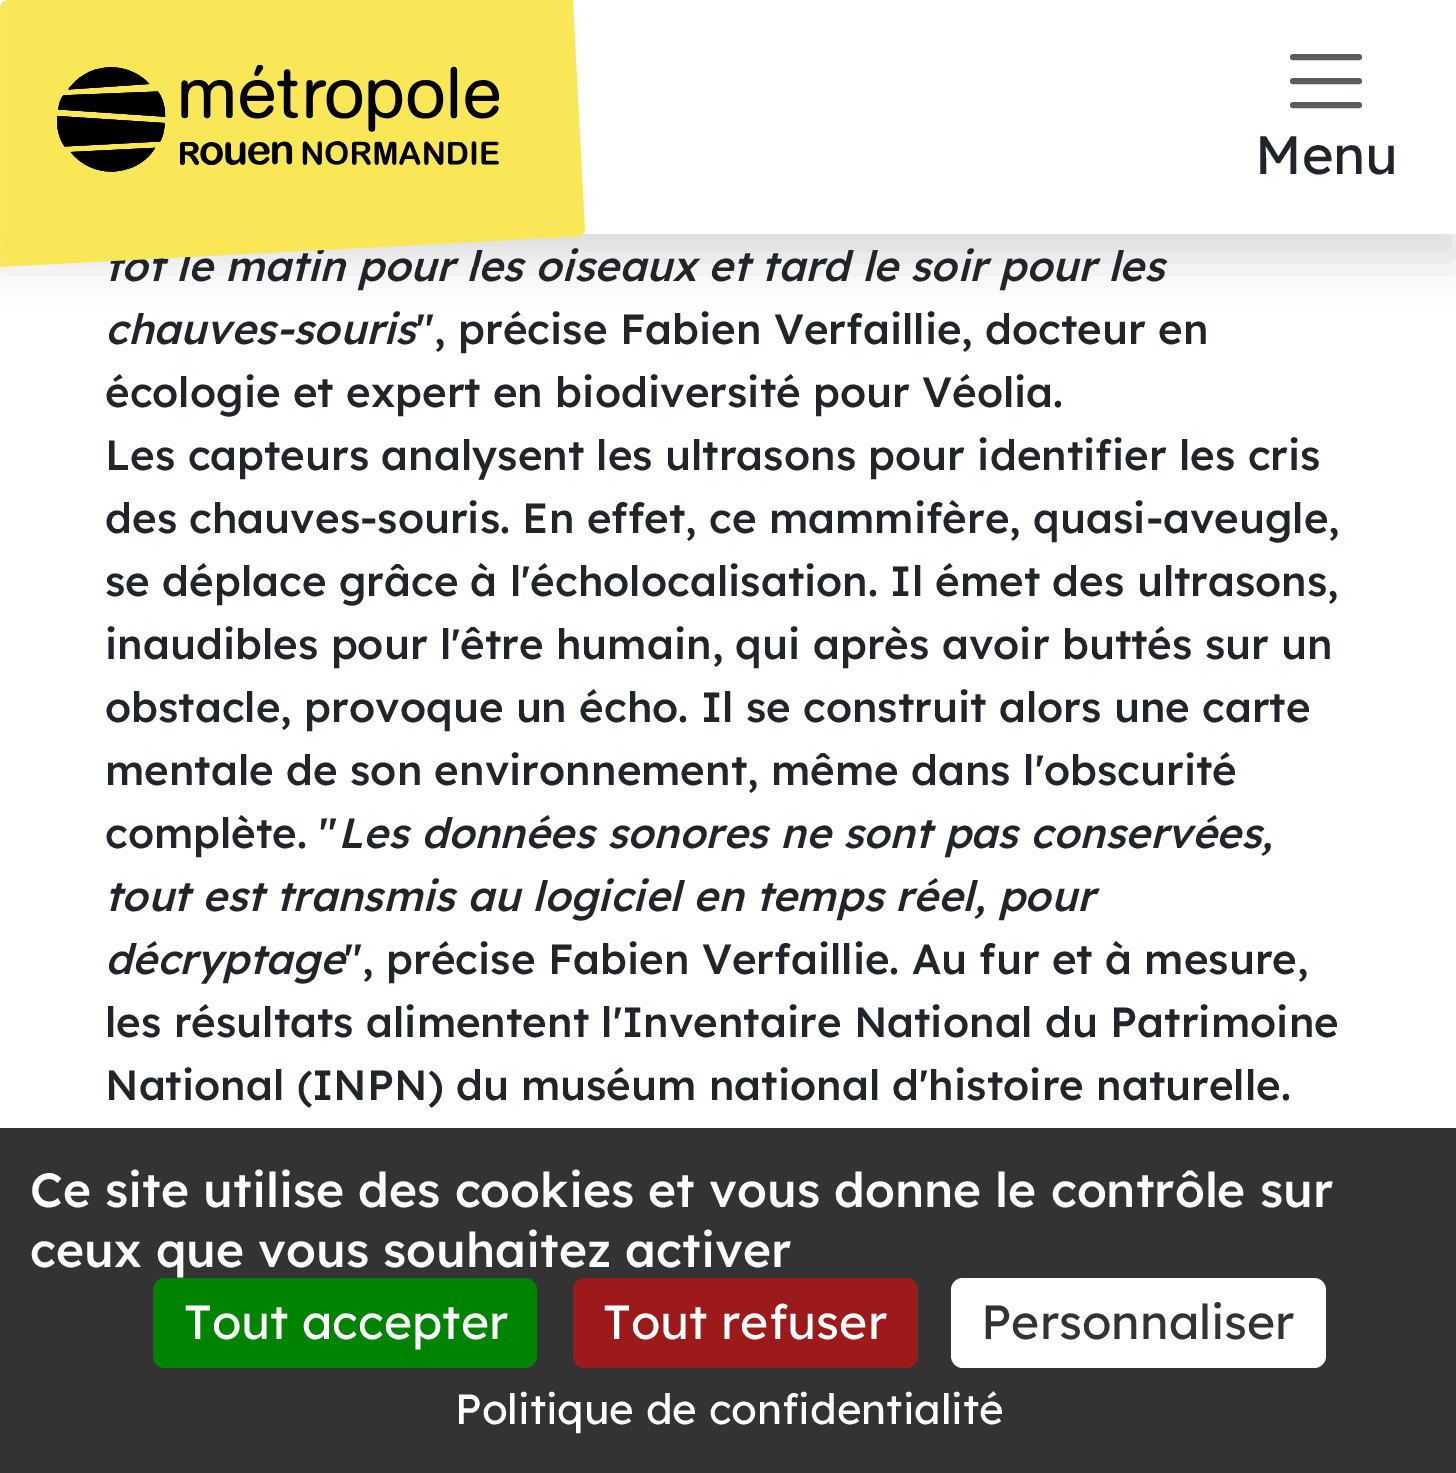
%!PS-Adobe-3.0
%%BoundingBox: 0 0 1456 1473
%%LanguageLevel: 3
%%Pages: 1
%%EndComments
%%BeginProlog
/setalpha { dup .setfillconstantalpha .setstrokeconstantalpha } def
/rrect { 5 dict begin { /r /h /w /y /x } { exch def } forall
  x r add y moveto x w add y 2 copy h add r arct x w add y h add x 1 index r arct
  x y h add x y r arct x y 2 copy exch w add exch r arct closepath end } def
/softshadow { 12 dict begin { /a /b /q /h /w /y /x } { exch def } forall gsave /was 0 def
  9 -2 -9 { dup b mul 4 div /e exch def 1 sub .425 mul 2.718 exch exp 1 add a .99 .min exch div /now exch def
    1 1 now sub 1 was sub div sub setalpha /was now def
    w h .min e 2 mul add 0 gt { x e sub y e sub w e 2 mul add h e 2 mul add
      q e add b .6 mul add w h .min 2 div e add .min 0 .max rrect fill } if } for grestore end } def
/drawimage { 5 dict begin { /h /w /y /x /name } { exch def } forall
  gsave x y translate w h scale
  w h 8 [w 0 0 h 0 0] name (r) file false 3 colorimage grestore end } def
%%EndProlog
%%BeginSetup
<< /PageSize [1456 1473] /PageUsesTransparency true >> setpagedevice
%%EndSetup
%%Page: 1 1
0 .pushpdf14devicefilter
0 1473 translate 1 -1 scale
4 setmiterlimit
1 setgray
0 0 1456 1473 rectfill
0 setgray
0 24 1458 234 0 24 0.15 softshadow
1 setgray
0 0 1456 234 rectfill
0.349 0.361 0.373 setrgbcolor
6 setlinewidth
1 setlinecap
newpath 1293 57 moveto 1359 57 lineto 1293 81 moveto 1359 81 lineto 1293 105 moveto 1359 105 lineto stroke
0.2 setgray
0 1128 1456 345 rectfill
0 0.514 0 setrgbcolor
153 1278 384 90 12 rrect fill
0.612 0.102 0.102 setrgbcolor
573 1278 345 90 12 rrect fill
1 setgray
951 1278 375 90 12 rrect fill
/Lexend-Regular [54 0 0 -54 0 0] selectfont
0.129 0.145 0.161 setrgbcolor
1255 174 moveto (Menu) show
/Lexend-MediumItalic [42 0 0 -42 0 0] selectfont
105 281 moveto (tôt le matin pour les oiseaux et tard le soir pour les) show
(images/1.raw) 0 0 585 267 drawimage
105 344 moveto (chauves-souris) show
/Lexend-Medium [42 0 0 -42 0 0] selectfont
416 344 moveto (", précise Fabien Verfaillie, docteur en) show
105 407 moveto (écologie et expert en biodiversité pour Véolia.) show
105 470 moveto (Les capteurs analysent les ultrasons pour identifier les cris) show
105 533 moveto (des chauves-souris. En effet, ce mammifère, quasi-aveugle,) show
105 596 moveto (se déplace grâce à l'écholocalisation. Il émet des ultrasons,) show
105 659 moveto (inaudibles pour l'être humain, qui après avoir buttés sur un) show
105 722 moveto (obstacle, provoque un écho. Il se construit alors une carte) show
105 785 moveto (mentale de son environnement, même dans l'obscurité) show
105 848 moveto (complète. ") show
/Lexend-MediumItalic [42 0 0 -42 0 0] selectfont
338 848 moveto (Les données sonores ne sont pas conservées,) show
105 911 moveto (tout est transmis au logiciel en temps réel, pour) show
105 974 moveto (décryptage) show
/Lexend-Medium [42 0 0 -42 0 0] selectfont
344 974 moveto (", précise Fabien Verfaillie. Au fur et à mesure,) show
105 1037 moveto (les résultats alimentent l'Inventaire National du Patrimoine) show
105 1100 moveto (National \(INPN\) du muséum national d'histoire naturelle.) show
/Lexend-Medium [48 0 0 -48 0 0] selectfont
1 setgray
30 1207 moveto (Ce site utilise des cookies et vous donne le contrôle sur) show
30 1267 moveto (ceux que vous souhaitez activer) show
/Lexend-Regular [48 0 0 -48 0 0] selectfont
184 1339 moveto (Tout accepter) show
603 1339 moveto (Tout refuser) show
0.2 setgray
981 1339 moveto (Personnaliser) show
/Lexend-Regular [42 0 0 -42 0 0] selectfont
1 setgray
455 1424 moveto (Politique de confidentialité) show
.poppdf14devicefilter showpage
%%EOF
